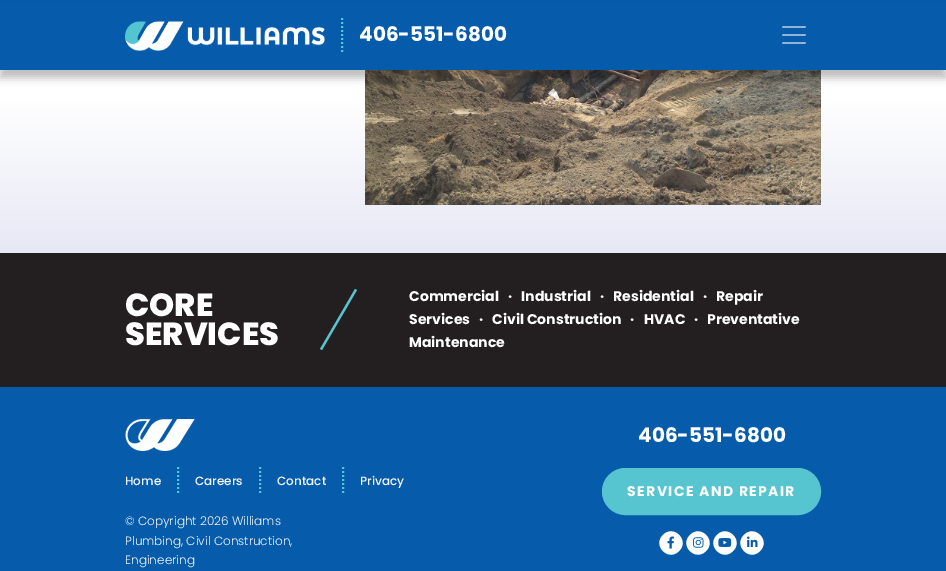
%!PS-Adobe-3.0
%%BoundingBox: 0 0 946 571
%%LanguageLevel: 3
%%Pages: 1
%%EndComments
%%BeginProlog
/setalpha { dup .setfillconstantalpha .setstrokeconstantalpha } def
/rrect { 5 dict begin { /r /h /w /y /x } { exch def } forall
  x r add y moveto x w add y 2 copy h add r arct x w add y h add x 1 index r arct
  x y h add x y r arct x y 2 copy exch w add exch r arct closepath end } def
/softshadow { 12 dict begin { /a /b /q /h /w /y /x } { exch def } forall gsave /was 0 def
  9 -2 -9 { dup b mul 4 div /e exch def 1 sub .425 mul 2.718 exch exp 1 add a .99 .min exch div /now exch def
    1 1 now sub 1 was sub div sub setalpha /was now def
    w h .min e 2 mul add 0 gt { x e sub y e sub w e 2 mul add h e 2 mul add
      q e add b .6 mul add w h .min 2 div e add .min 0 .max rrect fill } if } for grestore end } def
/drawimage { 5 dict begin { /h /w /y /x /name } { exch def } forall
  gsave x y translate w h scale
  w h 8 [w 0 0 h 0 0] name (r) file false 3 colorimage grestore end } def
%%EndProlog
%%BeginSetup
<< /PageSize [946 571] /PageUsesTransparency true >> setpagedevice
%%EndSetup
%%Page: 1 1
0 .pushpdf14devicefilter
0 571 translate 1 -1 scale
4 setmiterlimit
0.024 0.357 0.667 setrgbcolor
0 0 946 571 rectfill
gsave newpath 0 70 moveto 946 70 lineto 946 253 lineto 0 253 lineto closepath clip newpath
<< /ShadingType 2 /ColorSpace /DeviceRGB /Coords [473 -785 473 253] /Extend [true true] /Function << /FunctionType 3 /Domain [0 1] /Functions [<< /FunctionType 2 /Domain [0 1] /C0 [1 1 1] /C1 [1 1 1] /N 1 >> << /FunctionType 2 /Domain [0 1] /C0 [1 1 1] /C1 [0.902 0.91 0.961] /N 1 >>] /Bounds [0.85] /Encode [0 1 0 1] >> >> shfill grestore
(images/3.raw) 365 70 456 135 drawimage
0 setgray
0 8 946 70 0 4 0.25 softshadow
0.024 0.357 0.667 setrgbcolor
0 2 946 68 rectfill
0.337 0.773 0.816 setrgbcolor
2 setlinewidth
[2 2] 0 setdash
newpath 342 18 moveto 342 52 lineto stroke
(images/1.raw) 125 21 200 30 drawimage
(images/2.raw) 782 26 24 18 drawimage
0.137 0.122 0.125 setrgbcolor
0 253 946 134 rectfill
0.337 0.773 0.816 setrgbcolor
newpath 355 289 moveto 357 290 lineto 322 350 lineto 320 349 lineto closepath fill
602.5 468.5 218 46 23 rrect gsave fill grestore
1 setlinewidth
[] 0 setdash
stroke
1 setgray
newpath 663 535 moveto 673.5 524 690 540.5 679 551 curveto 668.5 562 652 545.5 663 535 curveto closepath fill
(images/4.raw) 667 536 7 13 drawimage
newpath 690 535 moveto 700.5 524 717 540.5 706 551 curveto 695.5 562 679 545.5 690 535 curveto closepath fill
(images/5.raw) 693 537 11 11 drawimage
newpath 717 535 moveto 727.5 524 744 540.5 733 551 curveto 722.5 562 706 545.5 717 535 curveto closepath fill
(images/6.raw) 718 538 14 9 drawimage
newpath 744 535 moveto 754.5 524 771 540.5 760 551 curveto 749.5 562 733 545.5 744 535 curveto closepath fill
(images/7.raw) 747 536 11 11 drawimage
(images/8.raw) 125 419 70 32 drawimage
0.337 0.773 0.816 setrgbcolor
2 setlinewidth
[2 2] 0 setdash
newpath 178 467 moveto 178 495 lineto stroke
newpath 260 467 moveto 260 495 lineto stroke
newpath 343 467 moveto 343 495 lineto stroke
/Poppins-Bold [20 0 0 -20 0 0] selectfont
1 setgray
359 41 moveto (406-551-6800) show
/Poppins-ExtraBold [32 0 0 -32 0 0] selectfont
125 316 moveto (CORE) show
125 345 moveto (SERVICES) show
/Poppins-Bold [14 0 0 -14 0 0] selectfont
409 301 moveto (Commercial) show
508 301 moveto (·) show
521 301 moveto (Industrial) show
600 301 moveto (·) show
613 301 moveto (Residential) show
703 301 moveto (·) show
716 301 moveto (Repair) show
409 324 moveto (Services) show
479 324 moveto (·) show
492 324 moveto (Civil Construction) show
630 324 moveto (·) show
644 324 moveto (HVAC) show
694 324 moveto (·) show
707 324 moveto (Preventative) show
409 347 moveto (Maintenance) show
/Poppins-Bold [20 0 0 -20 0 0] selectfont
638 442 moveto (406-551-6800) show
/Poppins-Bold [14 0 0 -14 0 0] selectfont
627 496 moveto 1.4 0 (SERVICE AND REPAIR) ashow
/Poppins-Medium [12 0 0 -12 0 0] selectfont
0.965 setgray
125 485 moveto (Home) show
195 485 moveto (Careers) show
277 485 moveto (Contact) show
360 485 moveto (Privacy) show
/Poppins-Light [12 0 0 -12 0 0] selectfont
125 525 moveto (© Copyright 2026 Williams) show
125 545 moveto (Plumbing, Civil Construction,) show
125 564 moveto (Engineering) show
.poppdf14devicefilter showpage
%%EOF
